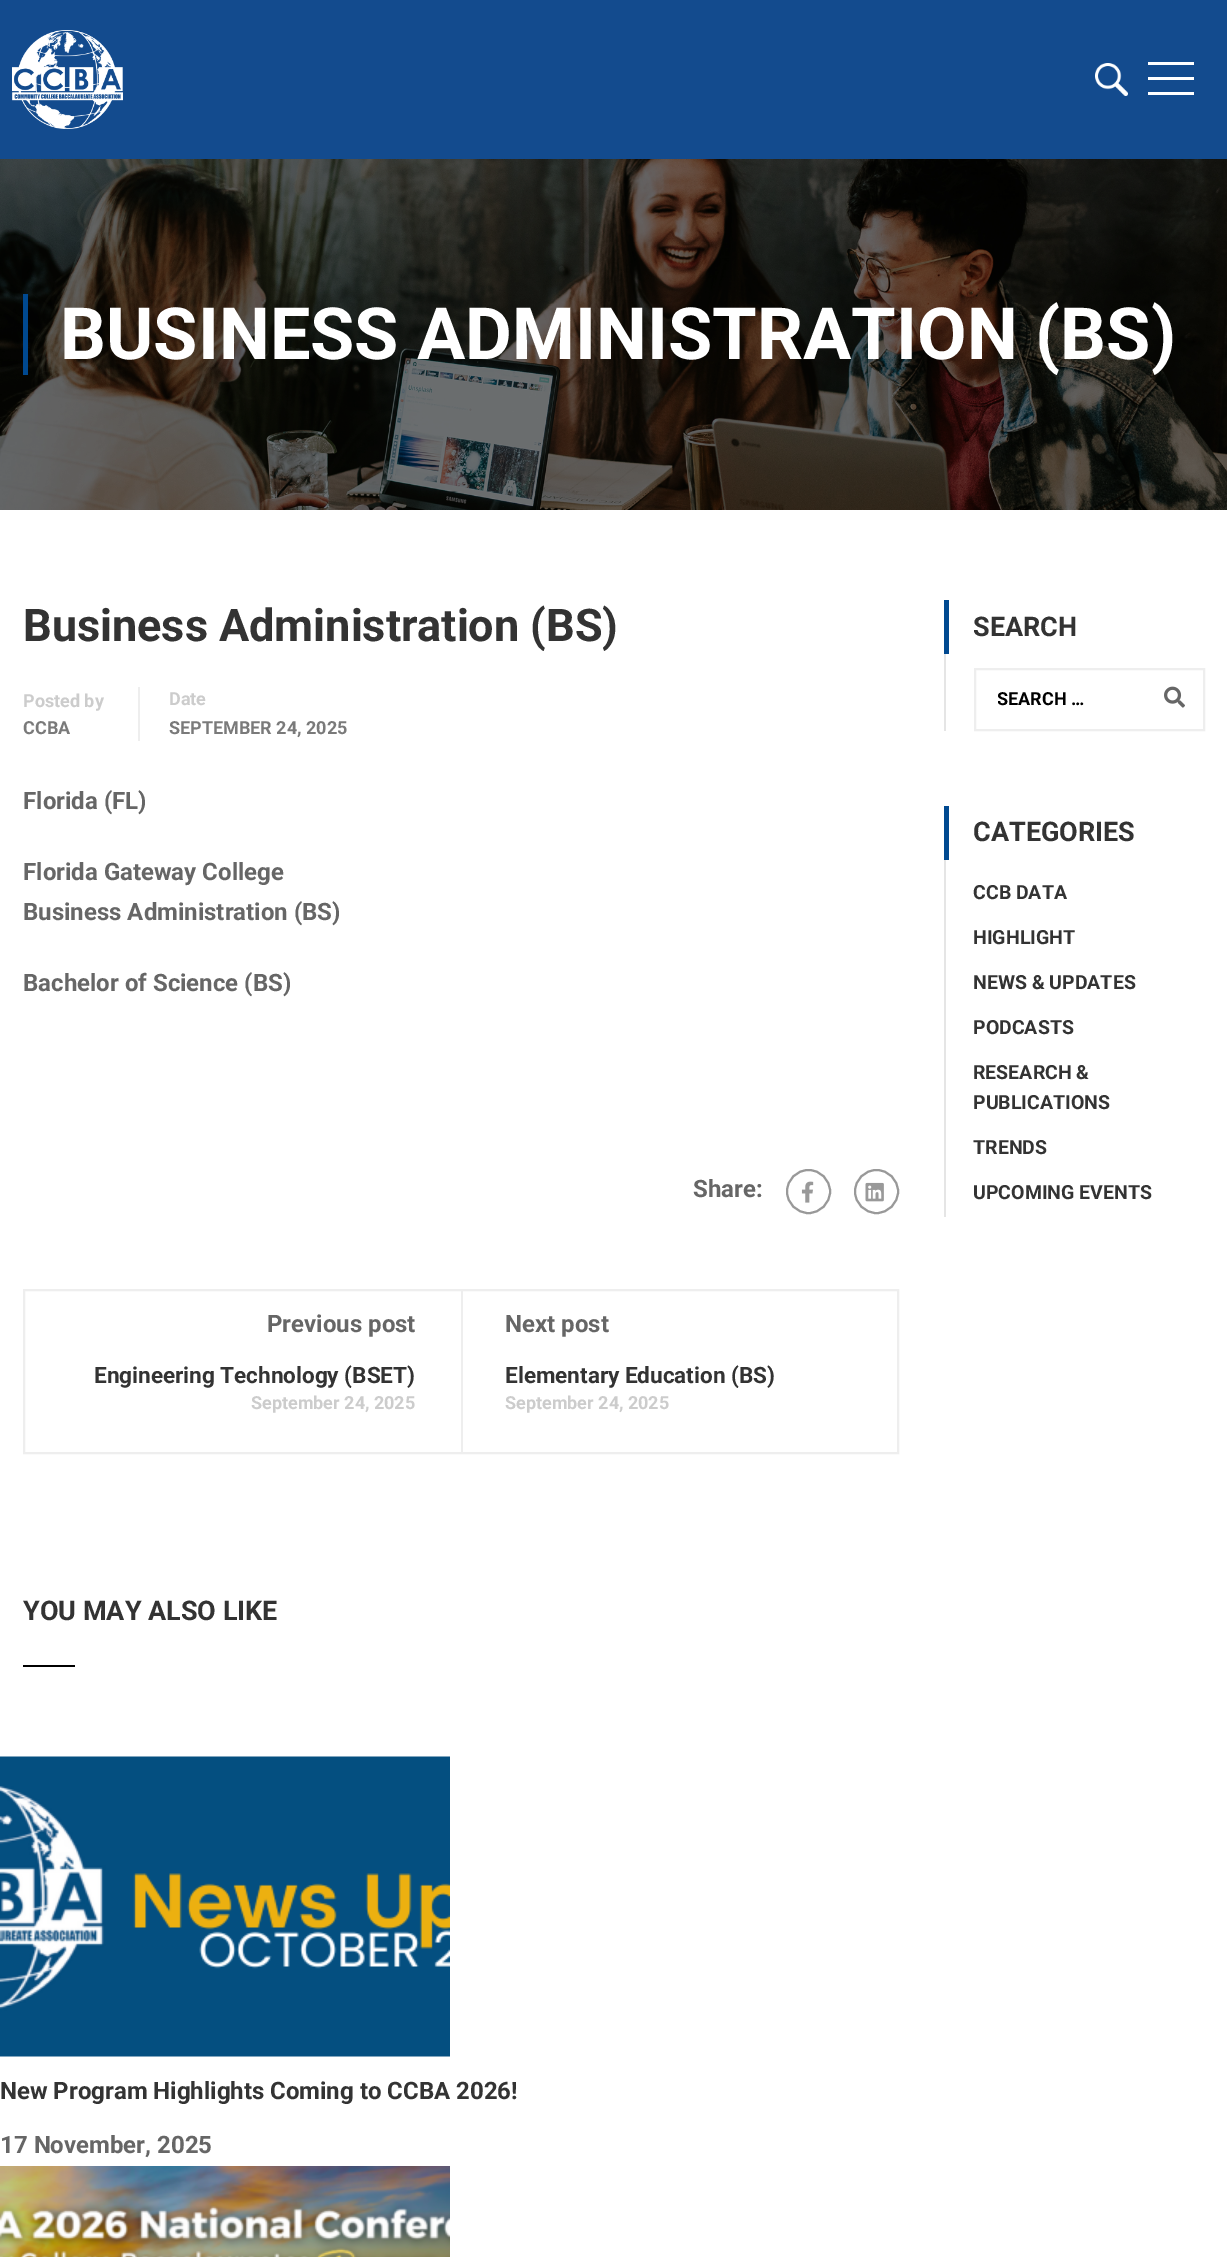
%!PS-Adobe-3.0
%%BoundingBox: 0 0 1227 2257
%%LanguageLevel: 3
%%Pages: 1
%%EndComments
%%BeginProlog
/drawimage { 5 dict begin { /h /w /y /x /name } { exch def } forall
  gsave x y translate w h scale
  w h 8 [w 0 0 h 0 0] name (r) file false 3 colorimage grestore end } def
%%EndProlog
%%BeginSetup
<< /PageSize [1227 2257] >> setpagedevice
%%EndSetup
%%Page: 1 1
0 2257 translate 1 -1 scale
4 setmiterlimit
1 setgray
0 0 1227 2257 rectfill
0.075 0.294 0.557 setrgbcolor
0 0 1227 159 rectfill
(images/1.raw) 12 30 111 99 drawimage
(images/2.raw) 1095 63 33 33 drawimage
1 setgray
1148 62 46 3 rectfill
1148 77 46 3 rectfill
1148 92 46 3 rectfill
(images/3.raw) 0 159 1227 351 drawimage
0 0.286 0.565 setrgbcolor
23 294 5 81 rectfill
0.933 setgray
138 687 2 54 rectfill
0.6 setgray
2 setlinewidth
newpath 808.5 1191.5 21.5 0 360 arc closepath stroke
(images/4.raw) 801 1181 13 22 drawimage
newpath 876.5 1191.5 21.5 0 360 arc closepath stroke
(images/5.raw) 865 1182 19 20 drawimage
0.933 setgray
24 1290 874 163 rectstroke
461 1290 2 162 rectfill
0 setgray
23 1665 52 2 rectfill
(images/6.raw) 0 1756 450 301 drawimage
(images/7.raw) 0 2166 450 91 drawimage
0 0.286 0.565 setrgbcolor
944 600 5 54 rectfill
0.898 setgray
944 654 2 77 rectfill
0.933 setgray
975 669 229 61 rectstroke
(images/8.raw) 1164 686 21 22 drawimage
0 0.286 0.565 setrgbcolor
944 806 5 54 rectfill
0.898 setgray
944 860 2 357 rectfill
/Roboto-Bold [72 0 0 -72 0 0] selectfont
1 setgray
60 359 moveto (BUSINESS ADMINISTRATION \(BS\)) show
/Roboto-Bold [45 0 0 -45 0 0] selectfont
0.2 setgray
23 641 moveto (Business Administration \(BS\)) show
/Roboto-Bold [18 0 0 -18 0 0] selectfont
0.8 setgray
23 707 moveto (Posted by) show
0.478 setgray
23 734 moveto (CCBA) show
0.8 setgray
169 705 moveto (Date) show
0.478 setgray
169 734 moveto (SEPTEMBER 24, 2025) show
/Roboto-Bold [24 0 0 -24 0 0] selectfont
0.4 setgray
23 809 moveto (Florida \(FL\)) show
23 880 moveto (Florida Gateway College) show
23 920 moveto (Business Administration \(BS\)) show
23 991 moveto (Bachelor of Science \(BS\)) show
693 1197 moveto (Share:) show
267 1332 moveto (Previous post) show
/Roboto-Bold [22.5 0 0 -22.5 0 0] selectfont
0.2 setgray
94 1383 moveto (Engineering Technology \(BSET\)) show
/Roboto-Bold [18 0 0 -18 0 0] selectfont
0.8 setgray
251 1409 moveto (September 24, 2025) show
/Roboto-Bold [24 0 0 -24 0 0] selectfont
0.4 setgray
505 1332 moveto (Next post) show
/Roboto-Bold [22.5 0 0 -22.5 0 0] selectfont
0.2 setgray
505 1383 moveto (Elementary Education \(BS\)) show
/Roboto-Bold [18 0 0 -18 0 0] selectfont
0.8 setgray
505 1409 moveto (September 24, 2025) show
/Roboto-Bold [27 0 0 -27 0 0] selectfont
0.2 setgray
23 1620 moveto (YOU MAY ALSO LIKE) show
/Roboto-Bold [24 0 0 -24 0 0] selectfont
0 2099 moveto (New Program Highlights Coming to CCBA 2026!) show
0.4 setgray
0 2153 moveto (17 November, 2025) show
/Roboto-Bold [27 0 0 -27 0 0] selectfont
0.2 setgray
973 636 moveto (SEARCH) show
gsave
998 689 109 21 rectclip
/Roboto-Bold [18 0 0 -18 0 0] selectfont
0 setgray
997 705 moveto (SEARCH …) show
grestore
973 841 moveto (CATEGORIES) show
/Roboto-Bold [19.5 0 0 -19.5 0 0] selectfont
973 899 moveto (CCB DATA) show
973 944 moveto (HIGHLIGHT) show
973 989 moveto (NEWS & UPDATES) show
973 1034 moveto (PODCASTS) show
973 1079 moveto (RESEARCH &) show
973 1109 moveto (PUBLICATIONS) show
973 1154 moveto (TRENDS) show
973 1199 moveto (UPCOMING EVENTS) show
showpage
%%EOF
